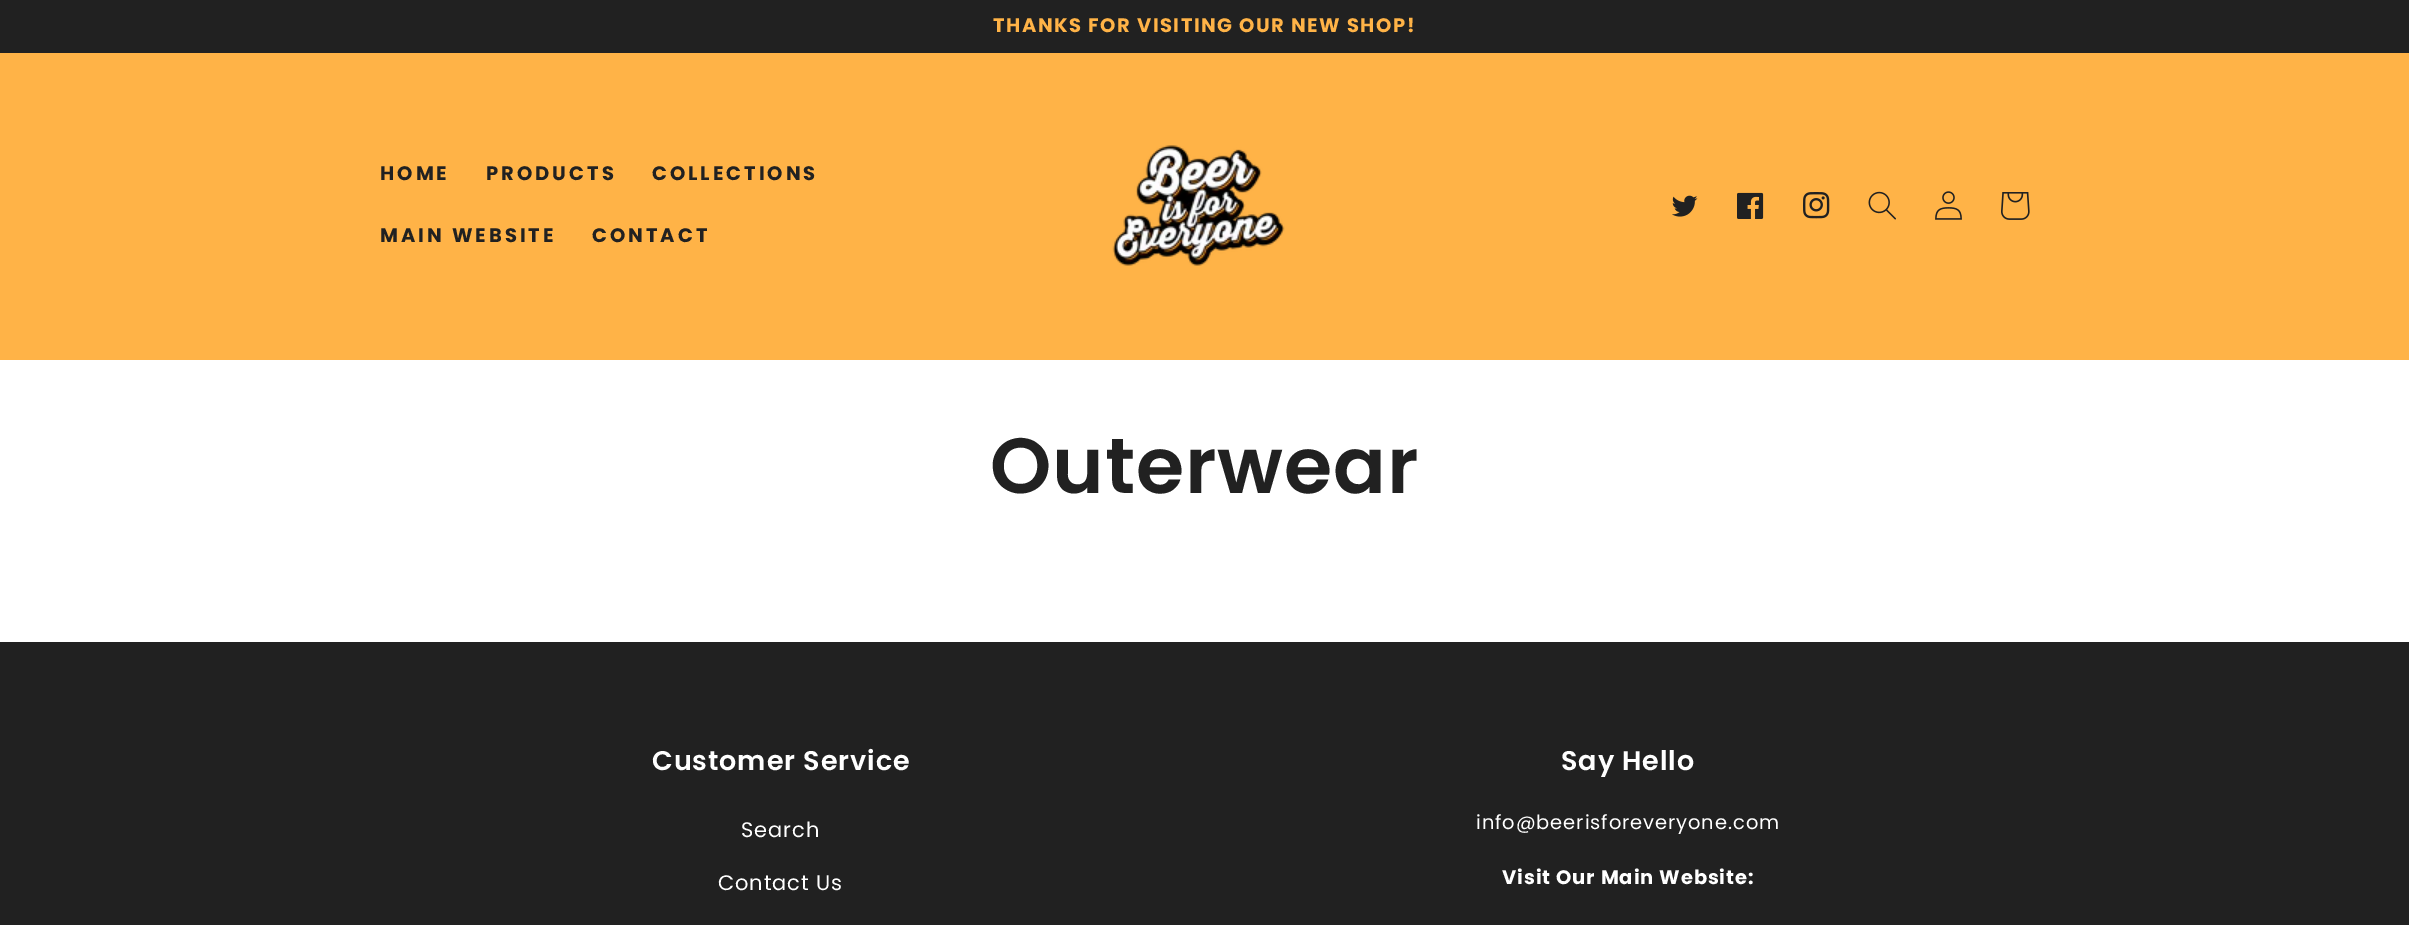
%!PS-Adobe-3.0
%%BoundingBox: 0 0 2409 925
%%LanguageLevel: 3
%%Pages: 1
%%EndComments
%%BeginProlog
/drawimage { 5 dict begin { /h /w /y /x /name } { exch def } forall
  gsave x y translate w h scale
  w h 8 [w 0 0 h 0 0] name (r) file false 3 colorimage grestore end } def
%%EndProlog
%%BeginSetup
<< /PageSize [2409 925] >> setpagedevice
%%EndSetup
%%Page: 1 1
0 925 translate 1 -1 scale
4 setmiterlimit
1 setgray
0 0 2409 925 rectfill
0.129 setgray
0 0 2409 53 rectfill
1 0.702 0.278 setrgbcolor
0 53 2409 307 rectfill
(images/1.raw) 1112 145 173 121 drawimage
(images/2.raw) 1672 195 26 22 drawimage
(images/3.raw) 1737 192 27 27 drawimage
(images/4.raw) 1803 192 27 27 drawimage
(images/5.raw) 1868 191 28 29 drawimage
(images/6.raw) 1935 191 27 29 drawimage
(images/7.raw) 2001 192 29 28 drawimage
0.129 setgray
0 642 2409 283 rectfill
/Poppins-Bold [19.5 0 0 -19.5 0 0] selectfont
1 0.702 0.278 setrgbcolor
993 32 moveto 1.5 0 (THANKS FOR VISITING OUR NEW SHOP!) ashow
0.129 setgray
380 180 moveto 3 0 (HOME) ashow
486 180 moveto 3 0 (PRODUCTS) ashow
652 180 moveto 3 0 (COLLECTIONS) ashow
380 242 moveto 3 0 (MAIN WEBSITE) ashow
592 242 moveto 3 0 (CONTACT) ashow
/Poppins-SemiBold [78 0 0 -78 0 0] selectfont
990 493 moveto 0.9 0 (Outerwear) ashow
/Poppins-SemiBold [27 0 0 -27 0 0] selectfont
1 setgray
652 770 moveto 0.9 0 (Customer Service) ashow
/Poppins-Regular [21 0 0 -21 0 0] selectfont
741 837 moveto 0.9 0 (Search) ashow
718 890 moveto 0.9 0 (Contact Us) ashow
/Poppins-SemiBold [27 0 0 -27 0 0] selectfont
1561 770 moveto 0.9 0 (Say Hello) ashow
/Poppins-Regular [19.5 0 0 -19.5 0 0] selectfont
1476 829 moveto 0.9 0 (info@beerisforeveryone.com) ashow
/Poppins-Bold [19.5 0 0 -19.5 0 0] selectfont
1502 884 moveto 0.9 0 (Visit Our Main Website:) ashow
showpage
%%EOF
